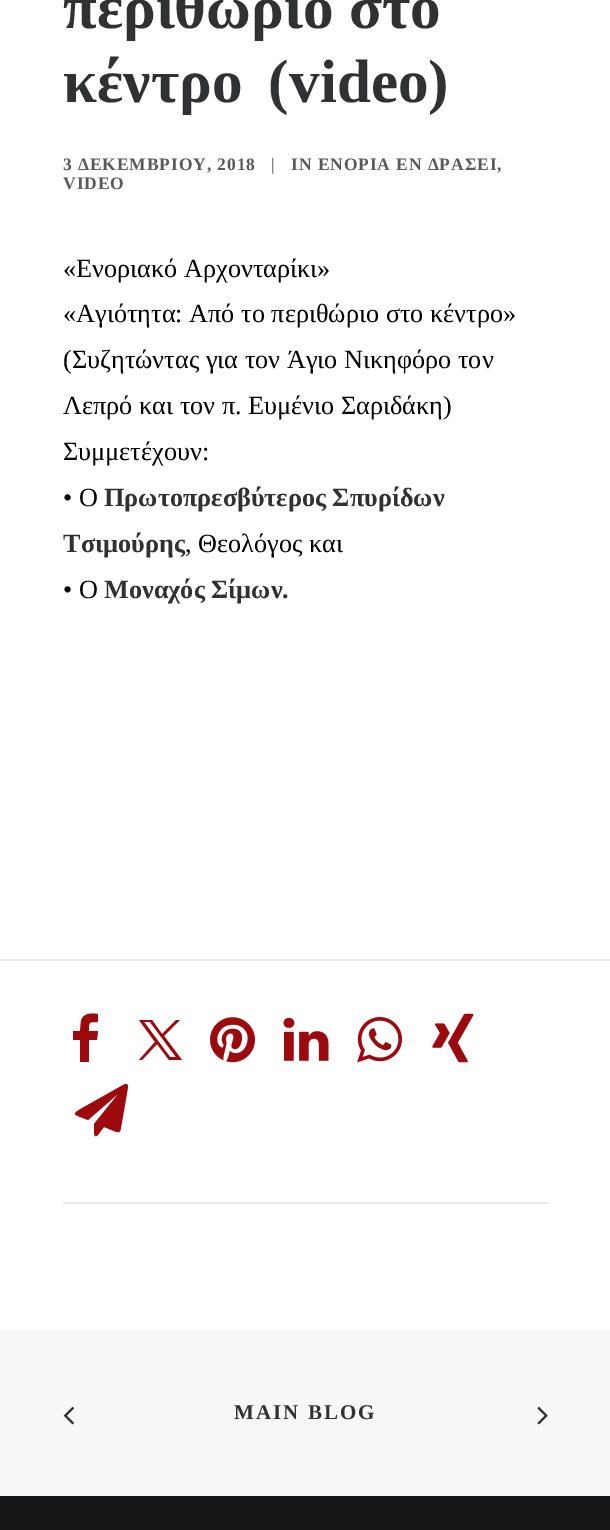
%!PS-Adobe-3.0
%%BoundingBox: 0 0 610 1530
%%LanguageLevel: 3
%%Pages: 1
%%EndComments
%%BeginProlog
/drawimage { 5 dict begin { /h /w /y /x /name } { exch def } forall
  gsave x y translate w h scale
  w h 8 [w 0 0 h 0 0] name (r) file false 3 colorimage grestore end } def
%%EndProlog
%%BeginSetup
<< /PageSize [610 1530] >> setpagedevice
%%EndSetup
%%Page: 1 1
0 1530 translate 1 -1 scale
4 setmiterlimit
0.078 0.086 0.094 setrgbcolor
0 0 610 1530 rectfill
1 setgray
0 0 610 1330 rectfill
0.918 setgray
0 959 610 2 rectfill
63 1202 485 2 rectfill
0.616 0.039 0.055 setrgbcolor
newpath 98 1014 moveto 98 1022 lineto 88 1022 89 1022 89 1031 curveto 98 1031 lineto 97 1040 lineto 89 1040 lineto 89 1062 lineto 80 1062 lineto 80 1040 lineto 73 1040 lineto 73 1031 lineto 80 1031 lineto 81 1021 lineto 83 1013 91 1013 98 1014 curveto closepath fill
newpath 139 1020 moveto 155 1042 lineto 139 1060 lineto 142 1060 lineto 157 1044 lineto 169 1060 lineto 182 1060 lineto 164 1036 lineto 180 1020 lineto 176 1020 lineto 162 1034 lineto 152 1020 lineto closepath 144 1022 moveto 150 1022 lineto 176 1057 lineto 170 1057 lineto closepath fill
(images/1.raw) 210 1017 45 46 drawimage
(images/2.raw) 283 1017 46 44 drawimage
(images/3.raw) 357 1017 45 46 drawimage
(images/4.raw) 432 1013 42 50 drawimage
newpath 127 1084 moveto 129 1086 127 1091 127 1093 curveto 123 1116 lineto 119 1137 123 1134 104 1127 curveto 100 1132 lineto 99 1134 97 1137 95 1136 curveto 94 1134 lineto 94 1124 lineto 119 1093 lineto 88 1120 lineto 73 1114 70 1115 84 1107 curveto 125 1084 lineto closepath fill
0.969 setgray
0 1330 610 166 rectfill
(images/5.raw) 63 1406 11 19 drawimage
(images/6.raw) 537 1406 11 19 drawimage
/LiberationSerif-Bold [61.25 0 0 -61.25 0 0] selectfont
0.188 0.192 0.2 setrgbcolor
63 28 moveto (περιθώριο στο) show
63 102 moveto 11 0 32 (κέντρο \(video\)) widthshow
/LiberationSerif-Bold [17.5 0 0 -17.5 0 0] selectfont
0.349 setgray
63 170 moveto 0.9 0 (3 ΔΕΚΕΜΒΡΙΟΥ, 2018) ashow
/LiberationSerif-Regular [17.5 0 0 -17.5 0 0] selectfont
271 170 moveto 0.9 0 (|) ashow
/LiberationSerif-Bold [17.5 0 0 -17.5 0 0] selectfont
291 170 moveto 0.9 0 (IN ΕΝΟΡΙΑ ΕΝ ΔΡΑΣΕΙ,) ashow
63 189 moveto 0.9 0 (VIDEO) ashow
/LiberationSerif-Regular [26.25 0 0 -26.25 0 0] selectfont
0 setgray
63 277 moveto («Ενοριακό Αρχονταρίκι») show
63 322 moveto («Αγιότητα: Από το περιθώριο στο κέντρο») show
63 368 moveto (\(Συζητώντας για τον Άγιο Νικηφόρο τον) show
63 414 moveto (Λεπρό και τον π. Ευμένιο Σαριδάκη\)) show
63 460 moveto (Συμμετέχουν:) show
63 506 moveto (• Ο) show
/LiberationSerif-Bold [26.25 0 0 -26.25 0 0] selectfont
0.188 0.192 0.2 setrgbcolor
104 506 moveto (Πρωτοπρεσβύτερος Σπυρίδων) show
63 552 moveto (Τσιμούρης) show
/LiberationSerif-Regular [26.25 0 0 -26.25 0 0] selectfont
0 setgray
185 552 moveto (, Θεολόγος και) show
63 598 moveto (• Ο) show
/LiberationSerif-Bold [26.25 0 0 -26.25 0 0] selectfont
0.188 0.192 0.2 setrgbcolor
104 598 moveto (Μοναχός Σίμων.) show
/LiberationSerif-Bold [21 0 0 -21 0 0] selectfont
234 1419 moveto 2 0 (MAIN BLOG) ashow
showpage
%%EOF
